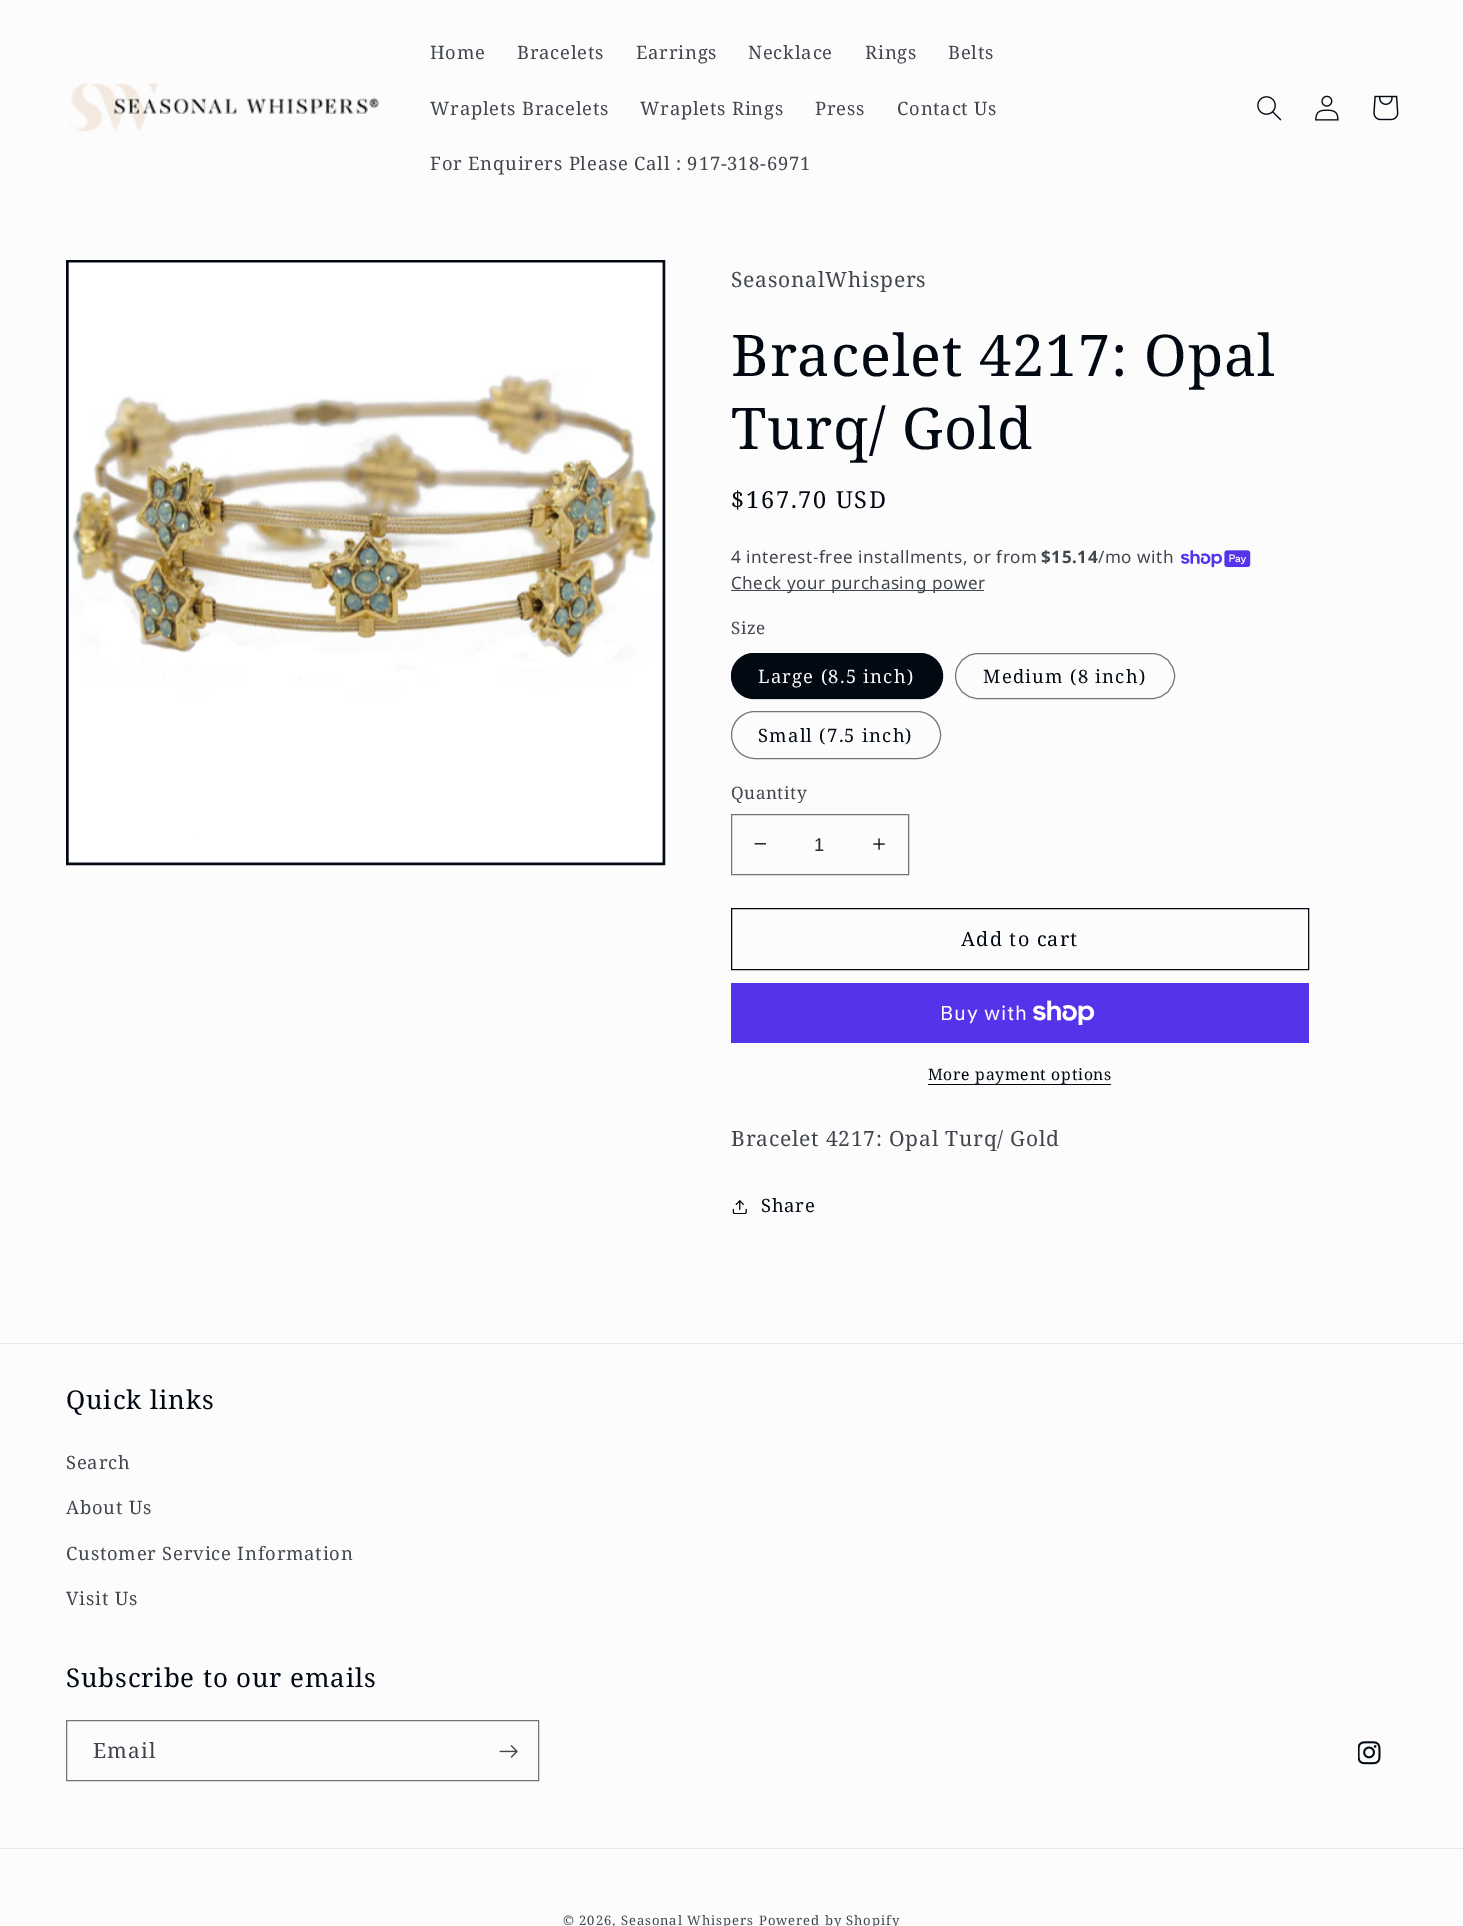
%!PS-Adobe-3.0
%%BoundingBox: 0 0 1463 1926
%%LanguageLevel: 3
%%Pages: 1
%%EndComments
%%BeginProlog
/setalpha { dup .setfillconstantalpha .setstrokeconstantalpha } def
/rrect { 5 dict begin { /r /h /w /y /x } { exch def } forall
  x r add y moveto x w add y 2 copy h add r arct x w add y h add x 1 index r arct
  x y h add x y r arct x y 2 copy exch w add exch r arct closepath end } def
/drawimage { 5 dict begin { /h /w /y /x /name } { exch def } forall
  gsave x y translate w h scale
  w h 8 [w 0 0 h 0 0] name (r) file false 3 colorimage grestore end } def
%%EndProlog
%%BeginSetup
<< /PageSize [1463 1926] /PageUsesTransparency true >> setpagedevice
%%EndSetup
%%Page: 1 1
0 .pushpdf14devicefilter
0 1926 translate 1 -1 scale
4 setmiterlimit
0.988 setgray
0 0 1463 1926 rectfill
(images/1.raw) 68 83 311 49 drawimage
(images/2.raw) 1257 96 25 25 drawimage
(images/3.raw) 1315 95 24 26 drawimage
(images/4.raw) 1373 95 26 26 drawimage
0.008 0.035 0.071 setrgbcolor
3 setlinewidth
67.5 261.5 596 602 rectstroke
(images/5.raw) 68 262 595 601 drawimage
(images/6.raw) 1181 550 70 18 drawimage
0.255 0.275 0.302 setrgbcolor
731 590 253 1 rectfill
0.008 0.035 0.071 setrgbcolor
731 653 212 46 23 rrect fill
0.55 setalpha
1 setlinewidth
731.5 653.5 211 45 22.5 rrect stroke
1 setalpha
0.447 0.463 0.482 setrgbcolor
955.5 653.5 219 45 22.5 rrect stroke
731.5 711.5 209 47 23.5 rrect stroke
(images/7.raw) 754 843 12 2 drawimage
(images/8.raw) 873 838 12 12 drawimage
731.5 814.5 177 60 rectstroke
0.008 0.035 0.071 setrgbcolor
731.5 908.5 577 61 rectstroke
0.329 0.2 0.922 setrgbcolor
731 983 578 60 rectfill
(images/9.raw) 1033 1000 62 25 drawimage
0.008 0.035 0.071 setrgbcolor
928 1084 183 1 rectfill
(images/10.raw) 732 1200 15 14 drawimage
0.91 0.914 0.914 setrgbcolor
0 1343 1463 1 rectfill
0.447 0.463 0.482 setrgbcolor
66.5 1720.5 472 60 rectstroke
(images/11.raw) 499 1745 19 13 drawimage
(images/12.raw) 1358 1741 23 24 drawimage
0.91 0.914 0.914 setrgbcolor
0 1848 1463 1 rectfill
/NotoSerif-Regular [18.4 0 0 -18.4 0 0] selectfont
0.255 0.275 0.302 setrgbcolor
430 59 moveto 0.8 0 (Home) ashow
517 59 moveto 0.8 0 (Bracelets) ashow
636 59 moveto 0.8 0 (Earrings) ashow
748 59 moveto 0.8 0 (Necklace) ashow
865 59 moveto 0.8 0 (Rings) ashow
948 59 moveto 0.8 0 (Belts) ashow
430 115 moveto 0.8 0 (Wraplets Bracelets) ashow
640 115 moveto 0.8 0 (Wraplets Rings) ashow
815 115 moveto 0.8 0 (Press) ashow
897 115 moveto 0.8 0 (Contact Us) ashow
430 170 moveto 0.8 0 (For Enquirers Please Call : 917-318-6971) ashow
/NotoSerif-Regular [21 0 0 -21 0 0] selectfont
731 287 moveto 0.8 0 (SeasonalWhispers) ashow
/NotoSerif-Regular [57.5 0 0 -57.5 0 0] selectfont
0.008 0.035 0.071 setrgbcolor
731 376 moveto 0.9 0 (Bracelet 4217: Opal) ashow
731 449 moveto 0.9 0 (Turq/ Gold) ashow
/NotoSerif-Regular [23.5 0 0 -23.5 0 0] selectfont
731 508 moveto 1.75 0 ($167.70 USD) ashow
/NotoSans-Regular [17.1 0 0 -17.1 0 0] selectfont
0.255 0.275 0.302 setrgbcolor
731 563 moveto 0.55 0 (4 interest-free installments, or from) ashow
/NotoSans-Bold [17.1 0 0 -17.1 0 0] selectfont
1041 563 moveto 0.55 0 ($15.14) ashow
/NotoSans-Regular [17.1 0 0 -17.1 0 0] selectfont
1098 563 moveto 0.55 0 (/mo with) ashow
731 589 moveto 0.55 0 (Check your purchasing power) ashow
/NotoSerif-Regular [17.1 0 0 -17.1 0 0] selectfont
731 634 moveto 0.55 0 (Size) ashow
/NotoSerif-Regular [18.4 0 0 -18.4 0 0] selectfont
0.988 setgray
758 683 moveto 1.25 0 (Large \(8.5 inch\)) ashow
0.008 0.035 0.071 setrgbcolor
983 683 moveto 1.25 0 (Medium \(8 inch\)) ashow
758 742 moveto 1.25 0 (Small \(7.5 inch\)) ashow
/NotoSerif-Regular [17.1 0 0 -17.1 0 0] selectfont
0.255 0.275 0.302 setrgbcolor
731 799 moveto 0.55 0 (Quantity) ashow
/LiberationSans-Regular [18.4 0 0 -18.4 0 0] selectfont
0.157 0.176 0.208 setrgbcolor
814 851 moveto (1) show
/NotoSerif-Regular [19.75 0 0 -19.75 0 0] selectfont
0.008 0.035 0.071 setrgbcolor
961 946 moveto 1.25 0 (Add to cart) ashow
/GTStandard-Regular [20 0 0 -20 0 0] selectfont
0.988 setgray
940 1020 moveto 0.8 0 (Buy with) ashow
/NotoSerif-Regular [15.75 0 0 -15.75 0 0] selectfont
0.008 0.035 0.071 setrgbcolor
928 1080 moveto 0.7 0 (More payment options) ashow
/NotoSerif-Regular [21 0 0 -21 0 0] selectfont
0.255 0.275 0.302 setrgbcolor
731 1146 moveto 0.8 0 (Bracelet 4217: Opal Turq/ Gold) ashow
/NotoSerif-Regular [18.4 0 0 -18.4 0 0] selectfont
0.008 0.035 0.071 setrgbcolor
761 1212 moveto 0.8 0 (Share) ashow
/NotoSerif-Regular [25.9 0 0 -25.9 0 0] selectfont
66 1409 moveto 0.9 0 (Quick links) ashow
/NotoSerif-Regular [18.4 0 0 -18.4 0 0] selectfont
0.255 0.275 0.302 setrgbcolor
66 1469 moveto 0.8 0 (Search) ashow
66 1514 moveto 0.8 0 (About Us) ashow
66 1560 moveto 0.8 0 (Customer Service Information) ashow
66 1605 moveto 0.8 0 (Visit Us) ashow
/NotoSerif-Regular [25.9 0 0 -25.9 0 0] selectfont
0.008 0.035 0.071 setrgbcolor
66 1687 moveto 0.9 0 (Subscribe to our emails) ashow
/NotoSerif-Regular [21 0 0 -21 0 0] selectfont
0.255 0.275 0.302 setrgbcolor
93 1758 moveto 1.25 0 (Email) ashow
/NotoSerif-Regular [13.1 0 0 -13.1 0 0] selectfont
563 1925 moveto 0.9 0 (© 2026, Seasonal Whispers) ashow
759 1925 moveto 0.9 0 (Powered by Shopify) ashow
.poppdf14devicefilter showpage
%%EOF
